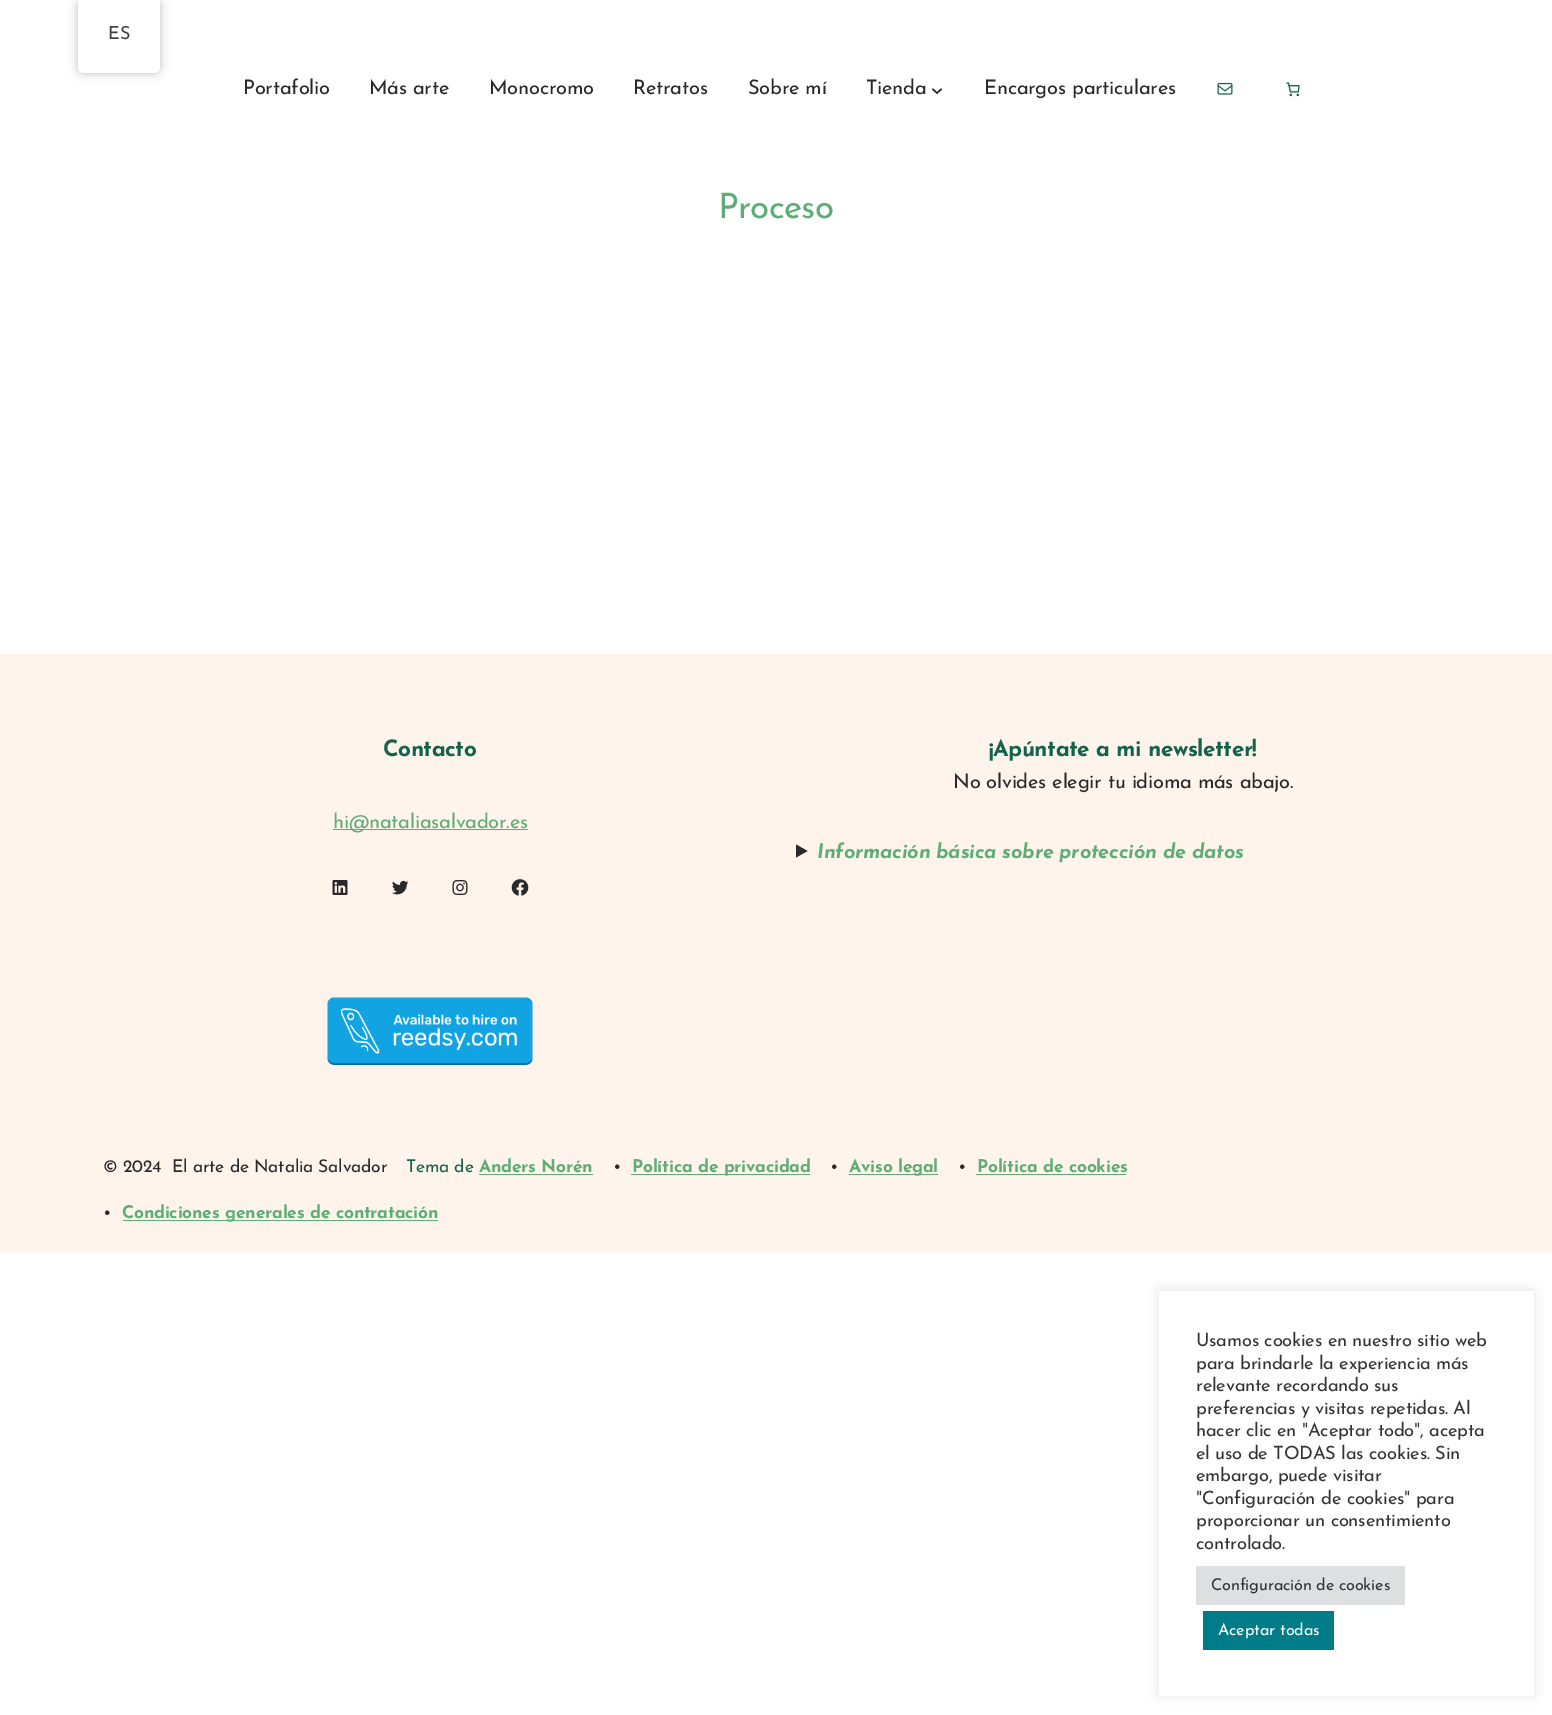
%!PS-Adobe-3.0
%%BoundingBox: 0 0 1552 1715
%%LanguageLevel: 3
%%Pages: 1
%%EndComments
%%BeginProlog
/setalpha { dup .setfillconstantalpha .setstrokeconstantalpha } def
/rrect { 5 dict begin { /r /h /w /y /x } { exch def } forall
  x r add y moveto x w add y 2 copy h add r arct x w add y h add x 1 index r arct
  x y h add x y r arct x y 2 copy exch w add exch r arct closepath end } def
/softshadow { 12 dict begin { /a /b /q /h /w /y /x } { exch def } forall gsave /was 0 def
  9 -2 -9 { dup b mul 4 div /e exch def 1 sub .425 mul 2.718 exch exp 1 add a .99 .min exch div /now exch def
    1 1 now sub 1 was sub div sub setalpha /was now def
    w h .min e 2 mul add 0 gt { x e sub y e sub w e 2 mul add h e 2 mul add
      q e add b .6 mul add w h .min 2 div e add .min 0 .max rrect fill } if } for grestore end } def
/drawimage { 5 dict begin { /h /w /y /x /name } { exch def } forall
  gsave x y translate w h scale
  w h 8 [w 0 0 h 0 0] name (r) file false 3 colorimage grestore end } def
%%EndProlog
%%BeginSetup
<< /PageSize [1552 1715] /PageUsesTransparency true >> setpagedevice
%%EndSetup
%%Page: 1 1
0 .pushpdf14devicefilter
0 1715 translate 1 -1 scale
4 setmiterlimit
1 setgray
0 0 1552 1715 rectfill
0 setgray
78 0 82 73 6 5 0.25 softshadow
1 setgray
newpath 78 0 moveto 160 0 lineto 160 67 lineto 160 70.5 157.5 73 154 73 curveto 84 73 lineto 80.5 73 78 70.5 78 67 curveto closepath fill
0.161 0.157 0.165 setrgbcolor
1.5 setlinewidth
newpath 932.5 89 moveto 937 93 lineto 941.5 89 lineto stroke
(images/1.raw) 1217 82 16 13 drawimage
(images/2.raw) 1286 82 14 15 drawimage
1 0.957 0.922 setrgbcolor
0 654 1552 599 rectfill
0.361 0.678 0.463 setrgbcolor
333 829 195 1 rectfill
(images/3.raw) 332 880 16 15 drawimage
(images/4.raw) 392 880 17 15 drawimage
(images/5.raw) 452 880 16 15 drawimage
(images/6.raw) 511 879 18 17 drawimage
(images/7.raw) 327 997 206 68 drawimage
0.161 0.157 0.165 setrgbcolor
newpath 796 844.5 moveto 807.5 851 lineto 796 857.5 lineto closepath fill
0.361 0.678 0.463 setrgbcolor
479 1174 114 1 rectfill
631 1174 179 1 rectfill
849 1174 89 1 rectfill
976 1174 150 1 rectfill
123 1220 315 1 rectfill
0.675 0.671 0.671 setrgbcolor
1159 1290 375 405 0 6 0.3 softshadow
1 setgray
1159 1291 375 405 rectfill
0.871 0.875 0.878 setrgbcolor
1196 1566 209 39 rectfill
0 0.486 0.537 setrgbcolor
1203 1611 131 39 rectfill
/JosefinSans-Regular [18 0 0 -18 0 0] selectfont
0.251 setgray
108 39 moveto -0.2 0 (ES) ashow
/JosefinSans-Regular [20 0 0 -20 0 0] selectfont
0.161 0.157 0.165 setrgbcolor
243 94 moveto -0.2 0 (Portafolio) ashow
369 94 moveto -0.2 0 (Más arte) ashow
489 94 moveto -0.2 0 (Monocromo) ashow
633 94 moveto -0.2 0 (Retratos) ashow
748 94 moveto -0.2 0 (Sobre mí) ashow
866 94 moveto -0.2 0 (Tienda) ashow
984 94 moveto -0.2 0 (Encargos particulares) ashow
/JosefinSans-Regular [35 0 0 -35 0 0] selectfont
0.361 0.678 0.463 setrgbcolor
718 218 moveto -0.75 0 (Proceso) ashow
/JosefinSans-Bold [22.5 0 0 -22.5 0 0] selectfont
0.075 0.384 0.286 setrgbcolor
383 756 moveto -0.5 0 (Contacto) ashow
/JosefinSans-Regular [20 0 0 -20 0 0] selectfont
0.361 0.678 0.463 setrgbcolor
333 828 moveto -0.2 0 (hi@nataliasalvador.es) ashow
/JosefinSans-Bold [22.5 0 0 -22.5 0 0] selectfont
0.075 0.384 0.286 setrgbcolor
989 756 moveto -0.5 0 (¡Apúntate a mi newsletter!) ashow
/JosefinSans-Regular [20 0 0 -20 0 0] selectfont
0.161 0.157 0.165 setrgbcolor
953 788 moveto -0.2 0 (No olvides elegir tu idioma más abajo.) ashow
/JosefinSans-BoldItalic [20 0 0 -20 0 0] selectfont
0.361 0.678 0.463 setrgbcolor
817 858 moveto -0.2 0 (Información básica sobre protección de datos) ashow
/JosefinSans-Regular [17.5 0 0 -17.5 0 0] selectfont
0.161 0.157 0.165 setrgbcolor
103 1172 moveto -0.2 0 (© 2024) ashow
172 1172 moveto -0.2 0 (El arte de Natalia Salvador) ashow
0.075 0.384 0.286 setrgbcolor
406 1172 moveto -0.2 0 (Tema de) ashow
/JosefinSans-Bold [17.5 0 0 -17.5 0 0] selectfont
0.361 0.678 0.463 setrgbcolor
479 1172 moveto -0.2 0 (Anders Norén) ashow
/JosefinSans-Regular [17.5 0 0 -17.5 0 0] selectfont
0.161 0.157 0.165 setrgbcolor
613 1172 moveto -0.2 0 (•) ashow
/JosefinSans-Bold [17.5 0 0 -17.5 0 0] selectfont
0.361 0.678 0.463 setrgbcolor
632 1172 moveto -0.2 0 (Política de privacidad) ashow
/JosefinSans-Regular [17.5 0 0 -17.5 0 0] selectfont
0.161 0.157 0.165 setrgbcolor
830 1172 moveto -0.2 0 (•) ashow
/JosefinSans-Bold [17.5 0 0 -17.5 0 0] selectfont
0.361 0.678 0.463 setrgbcolor
849 1172 moveto -0.2 0 (Aviso legal) ashow
/JosefinSans-Regular [17.5 0 0 -17.5 0 0] selectfont
0.161 0.157 0.165 setrgbcolor
958 1172 moveto -0.2 0 (•) ashow
/JosefinSans-Bold [17.5 0 0 -17.5 0 0] selectfont
0.361 0.678 0.463 setrgbcolor
977 1172 moveto -0.2 0 (Política de cookies) ashow
/JosefinSans-Regular [17.5 0 0 -17.5 0 0] selectfont
0.161 0.157 0.165 setrgbcolor
103 1218 moveto -0.2 0 (•) ashow
/JosefinSans-Bold [17.5 0 0 -17.5 0 0] selectfont
0.361 0.678 0.463 setrgbcolor
122 1218 moveto -0.2 0 (Condiciones generales de contratación) ashow
/JosefinSans-Regular [18.3 0 0 -18.3 0 0] selectfont
0.2 setgray
1196 1346 moveto -0.2 0 (Usamos cookies en nuestro sitio web) ashow
1196 1369 moveto -0.2 0 (para brindarle la experiencia más) ashow
1196 1391 moveto -0.2 0 (relevante recordando sus) ashow
1196 1414 moveto -0.2 0 (preferencias y visitas repetidas. Al) ashow
1196 1436 moveto -0.2 0 (hacer clic en "Aceptar todo", acepta) ashow
1196 1459 moveto -0.2 0 (el uso de TODAS las cookies. Sin) ashow
1196 1481 moveto -0.2 0 (embargo, puede visitar) ashow
1196 1504 moveto -0.2 0 ("Configuración de cookies" para) ashow
1196 1526 moveto -0.2 0 (proporcionar un consentimiento) ashow
1196 1549 moveto -0.2 0 (controlado.) ashow
/JosefinSans-Regular [16.25 0 0 -16.25 0 0] selectfont
1211 1590 moveto -0.2 0 (Configuración de cookies) ashow
1 setgray
1218 1635 moveto -0.2 0 (Aceptar todas) ashow
.poppdf14devicefilter showpage
%%EOF
